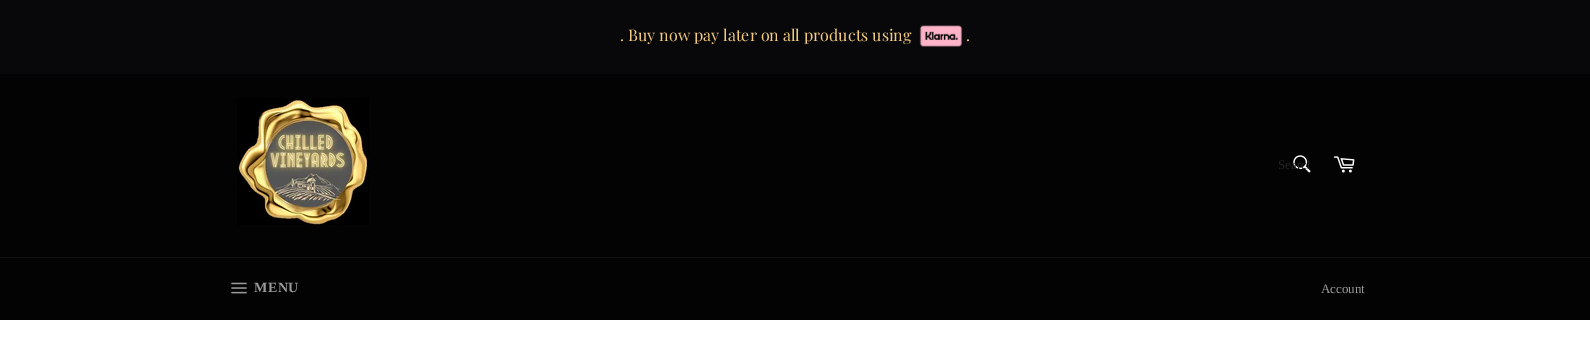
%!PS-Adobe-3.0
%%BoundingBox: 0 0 1590 338
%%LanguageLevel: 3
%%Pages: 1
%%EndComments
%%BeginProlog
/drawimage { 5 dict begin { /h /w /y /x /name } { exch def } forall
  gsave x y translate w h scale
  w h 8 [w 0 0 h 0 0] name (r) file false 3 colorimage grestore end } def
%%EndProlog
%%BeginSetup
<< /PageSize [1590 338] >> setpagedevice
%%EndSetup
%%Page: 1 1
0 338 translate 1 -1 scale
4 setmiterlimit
1 setgray
0 0 1590 338 rectfill
0.012 setgray
0 74 1590 183 rectfill
0.031 0.031 0.043 setrgbcolor
0 0 1590 74 rectfill
(images/1.raw) 919 25 44 22 drawimage
(images/2.raw) 237 98 132 127 drawimage
(images/3.raw) 1293 155 18 18 drawimage
(images/4.raw) 1333 156 22 17 drawimage
0.012 setgray
0 258 1590 62 rectfill
0.063 setgray
0 257 1590 1 rectfill
(images/5.raw) 231 282 16 12 drawimage
/PlayfairDisplay-Regular [16 0 0 -16 0 0] selectfont
0.949 0.792 0.502 setrgbcolor
620 41 moveto (. Buy now pay later on all products using) show
966 41 moveto (.) show
gsave
1278 157 32 16 rectclip
/LiberationSerif-Regular [13 0 0 -13 0 0] selectfont
0.141 setgray
1278 169 moveto (Search) show
grestore
/LiberationSerif-Bold [14 0 0 -14 0 0] selectfont
0.604 setgray
254 292 moveto 0.5 0 (MENU) ashow
/LiberationSerif-Regular [13 0 0 -13 0 0] selectfont
1321 293 moveto (Account) show
showpage
%%EOF
